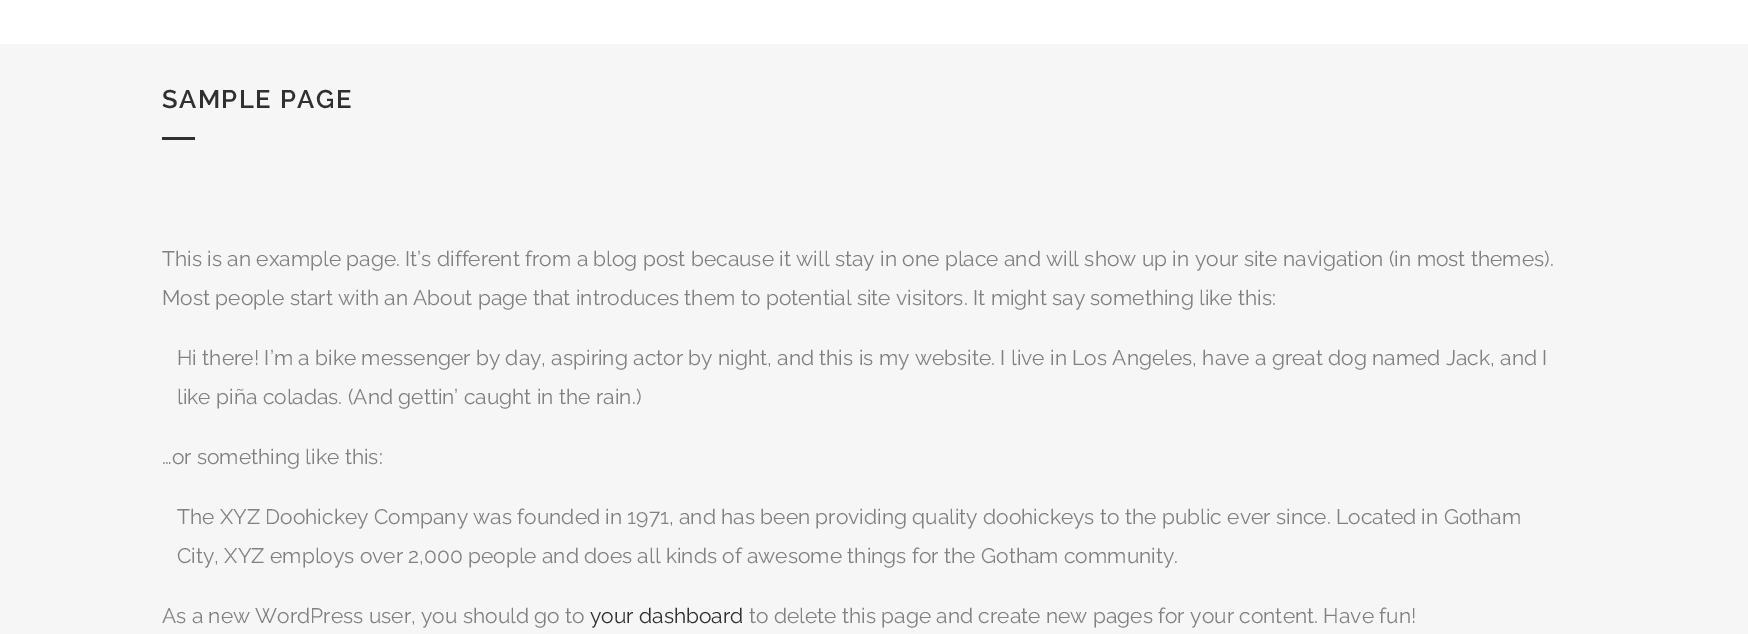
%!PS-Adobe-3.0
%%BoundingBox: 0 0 1748 634
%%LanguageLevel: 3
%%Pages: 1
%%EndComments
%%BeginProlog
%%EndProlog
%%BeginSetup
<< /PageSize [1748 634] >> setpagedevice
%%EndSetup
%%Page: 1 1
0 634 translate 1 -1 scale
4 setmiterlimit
0.965 setgray
0 0 1748 634 rectfill
1 setgray
0 0 1748 44 rectfill
0.188 setgray
162 137 33 3 rectfill
/Raleway-SemiBold [25.5 0 0 -25.5 0 0] selectfont
162 108 moveto 1.5 0 (SAMPLE PAGE) ashow
/Raleway-Regular [21 0 0 -21 0 0] selectfont
0.506 setgray
162 266 moveto (This is an example page. It’s different from a blog post because it will stay in one place and will show up in your site navigation \(in most themes\).) show
162 305 moveto (Most people start with an About page that introduces them to potential site visitors. It might say something like this:) show
177 365 moveto (Hi there! I’m a bike messenger by day, aspiring actor by night, and this is my website. I live in Los Angeles, have a great dog named Jack, and I) show
177 404 moveto (like piña coladas. \(And gettin’ caught in the rain.\)) show
162 464 moveto (…or something like this:) show
177 524 moveto (The XYZ Doohickey Company was founded in 1971, and has been providing quality doohickeys to the public ever since. Located in Gotham) show
177 563 moveto (City, XYZ employs over 2,000 people and does all kinds of awesome things for the Gotham community.) show
162 623 moveto (As a new WordPress user, you should go to) show
0.188 setgray
590 623 moveto (your dashboard) show
0.506 setgray
749 623 moveto (to delete this page and create new pages for your content. Have fun!) show
showpage
%%EOF
